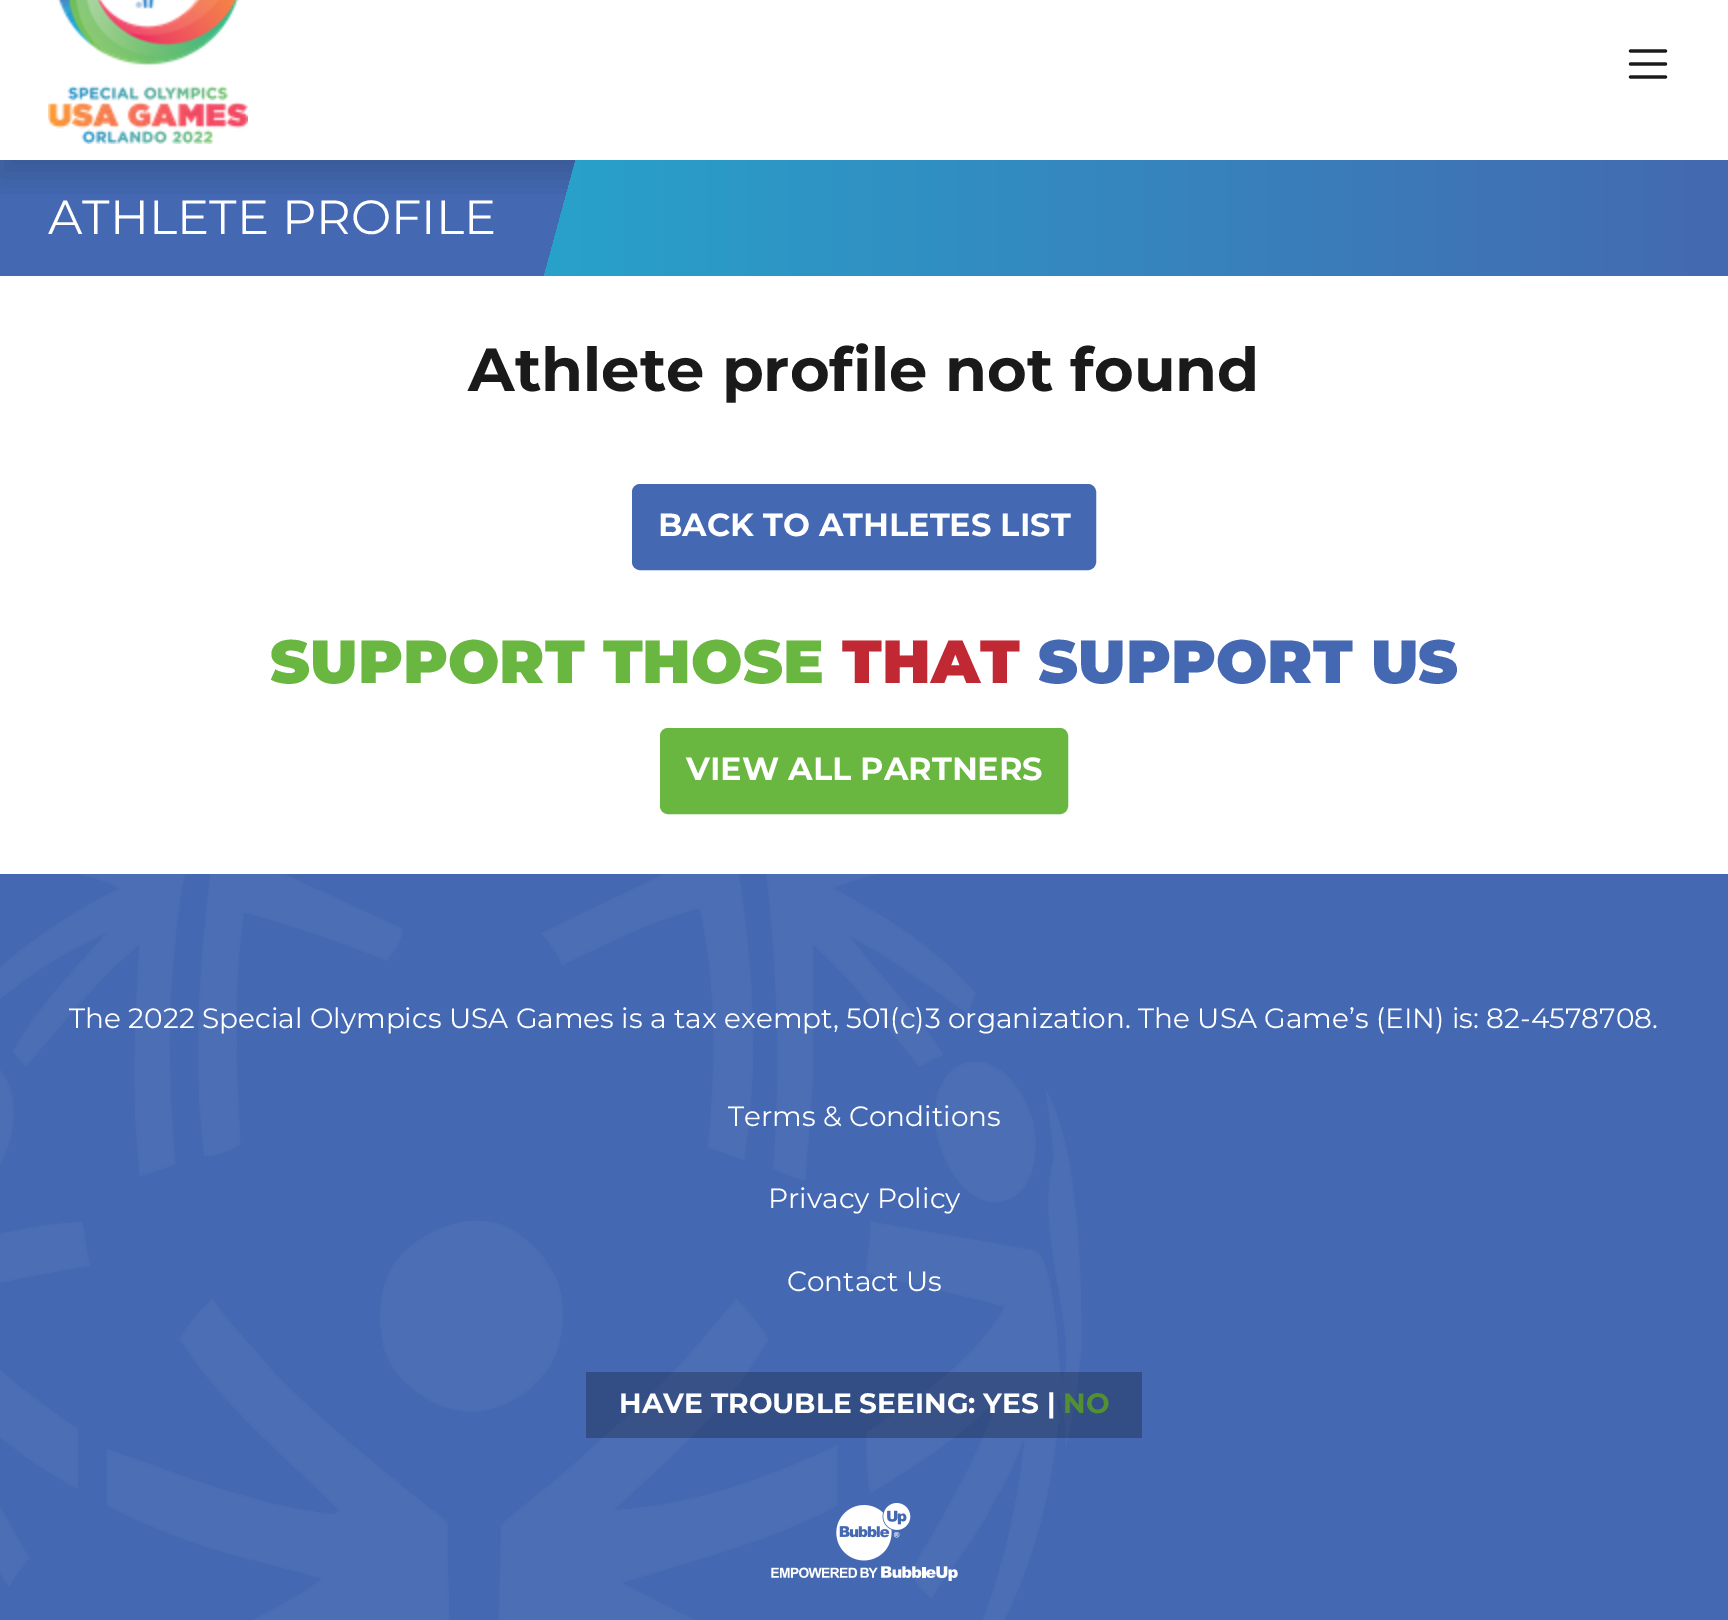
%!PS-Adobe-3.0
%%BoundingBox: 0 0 1728 1620
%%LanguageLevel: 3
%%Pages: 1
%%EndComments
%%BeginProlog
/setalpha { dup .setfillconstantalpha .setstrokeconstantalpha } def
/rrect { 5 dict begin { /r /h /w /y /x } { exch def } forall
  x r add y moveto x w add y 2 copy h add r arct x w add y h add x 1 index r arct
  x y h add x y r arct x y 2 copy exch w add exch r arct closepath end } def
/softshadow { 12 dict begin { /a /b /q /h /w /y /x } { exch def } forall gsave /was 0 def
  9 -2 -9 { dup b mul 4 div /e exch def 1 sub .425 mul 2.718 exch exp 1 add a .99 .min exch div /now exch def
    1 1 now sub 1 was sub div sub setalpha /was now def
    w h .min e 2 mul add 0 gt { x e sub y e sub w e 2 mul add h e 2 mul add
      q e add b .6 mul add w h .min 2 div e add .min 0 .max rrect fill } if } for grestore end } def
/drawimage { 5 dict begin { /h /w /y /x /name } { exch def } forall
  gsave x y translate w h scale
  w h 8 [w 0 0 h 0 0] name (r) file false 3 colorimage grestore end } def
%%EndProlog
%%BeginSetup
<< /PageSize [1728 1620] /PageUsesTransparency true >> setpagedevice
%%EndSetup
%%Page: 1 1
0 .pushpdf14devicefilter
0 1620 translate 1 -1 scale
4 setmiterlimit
1 setgray
0 0 1728 1620 rectfill
0.267 0.408 0.694 setrgbcolor
0 160 576 116 rectfill
gsave
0 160 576 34 rectclip
0 setgray
0 -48 1728 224 0 16 0.15 softshadow
grestore
(images/1.raw) 48 0 200 144 drawimage
0.102 setgray
3.2 setlinewidth
1 setlinecap
newpath 1630.5 51 moveto 1665.5 51 lineto 1630.5 64 moveto 1665.5 64 lineto 1630.5 77 moveto 1665.5 77 lineto stroke
gsave
0 160 1728 116 rectclip
gsave newpath 576 160 moveto 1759 160 lineto 1728 277 lineto 544 277 lineto closepath clip newpath
<< /ShadingType 2 /ColorSpace /DeviceRGB /Coords [560 218 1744 218] /Extend [true true] /Function << /FunctionType 2 /Domain [0 1] /C0 [0.157 0.631 0.792] /C1 [0.267 0.408 0.694] /N 1 >> >> shfill grestore
grestore
0.267 0.408 0.694 setrgbcolor
633 485 462 84 7 rrect gsave fill grestore
2 setlinewidth
0 setlinecap
stroke
0.412 0.714 0.251 setrgbcolor
661 729 406 84 7 rrect gsave fill grestore
stroke
0.267 0.408 0.694 setrgbcolor
0 874 1728 746 rectfill
(images/2.raw) 0 874 1082 746 drawimage
0.25 setalpha
0 setgray
586 1372 556 66 rectfill
1 setalpha
(images/3.raw) 771 1503 187 78 drawimage
/Montserrat-Regular [48 0 0 -48 0 0] selectfont
1 setgray
48 234 moveto (ATHLETE PROFILE) show
/Montserrat-Bold [60.75 0 0 -60.75 0 0] selectfont
0.102 setgray
468 391 moveto (Athlete profile not found) show
/Montserrat-Bold [32 0 0 -32 0 0] selectfont
1 setgray
658 536 moveto (BACK TO ATHLETES LIST) show
/Montserrat-Black [60.75 0 0 -60.75 0 0] selectfont
0.412 0.714 0.251 setrgbcolor
270 683 moveto (SUPPORT THOSE) show
0.753 0.157 0.2 setrgbcolor
842 683 moveto (THAT) show
0.267 0.408 0.694 setrgbcolor
1038 683 moveto (SUPPORT US) show
/Montserrat-Bold [32 0 0 -32 0 0] selectfont
1 setgray
686 780 moveto (VIEW ALL PARTNERS) show
/Montserrat-Regular [28 0 0 -28 0 0] selectfont
69 1028 moveto (The 2022 Special Olympics USA Games is a tax exempt, 501\(c\)3 organization. The USA Game’s \(EIN\) is: 82-4578708.) show
728 1126 moveto (Terms & Conditions) show
768 1208 moveto (Privacy Policy) show
787 1291 moveto (Contact Us) show
/Montserrat-Bold [28 0 0 -28 0 0] selectfont
619 1413 moveto (HAVE TROUBLE SEEING: YES |) show
0.325 0.565 0.196 setrgbcolor
1063 1413 moveto (NO) show
.poppdf14devicefilter showpage
%%EOF
